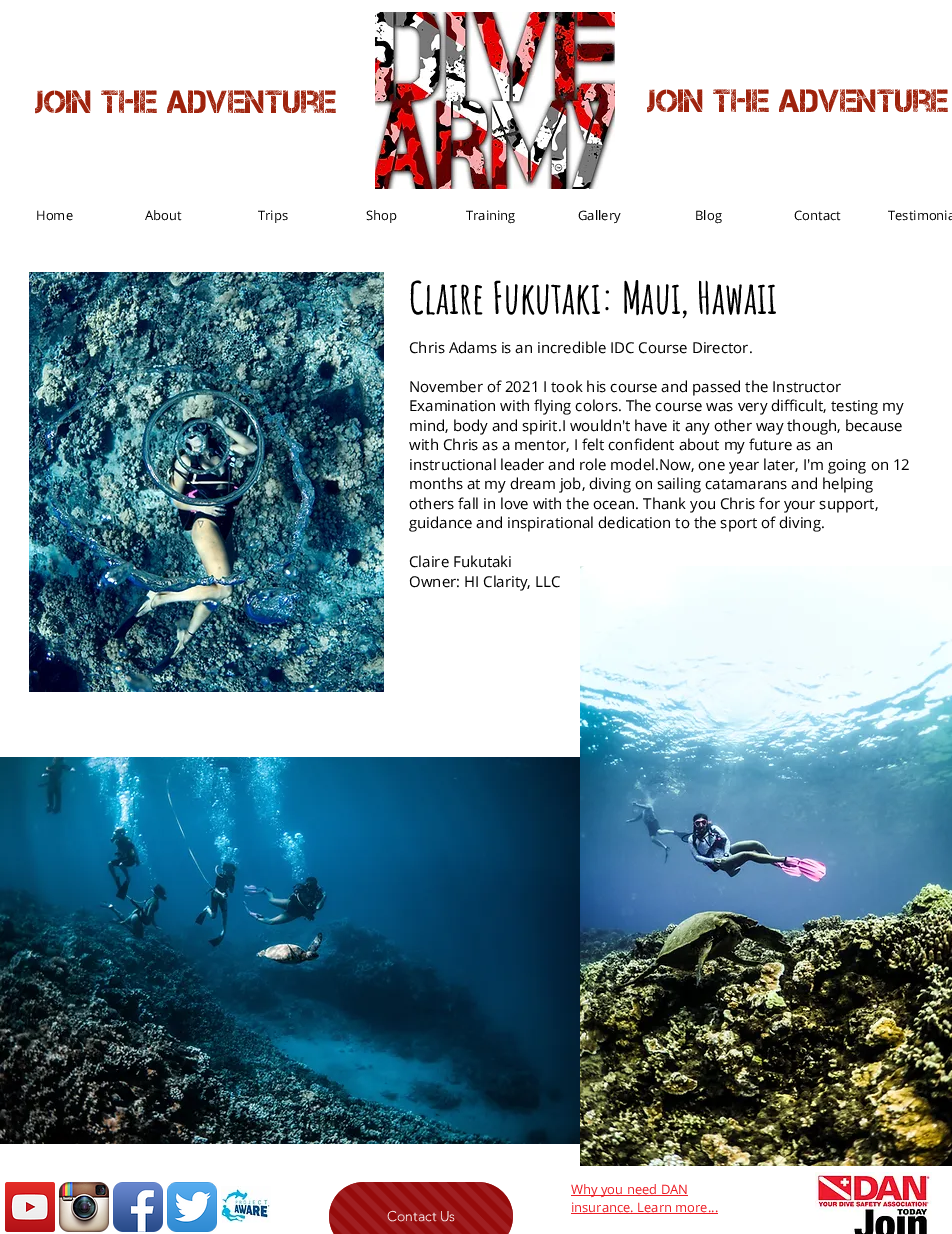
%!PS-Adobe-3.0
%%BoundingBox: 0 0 952 1234
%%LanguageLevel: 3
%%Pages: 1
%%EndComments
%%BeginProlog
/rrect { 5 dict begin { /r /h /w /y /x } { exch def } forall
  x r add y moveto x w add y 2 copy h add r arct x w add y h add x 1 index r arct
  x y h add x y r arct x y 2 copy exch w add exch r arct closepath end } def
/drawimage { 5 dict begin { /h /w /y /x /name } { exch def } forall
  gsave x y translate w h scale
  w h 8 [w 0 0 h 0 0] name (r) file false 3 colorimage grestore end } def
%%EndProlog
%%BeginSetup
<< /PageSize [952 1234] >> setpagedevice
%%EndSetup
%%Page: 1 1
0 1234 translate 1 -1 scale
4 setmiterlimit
1 setgray
0 0 952 1234 rectfill
(images/1.raw) 375 12 240 177 drawimage
(images/2.raw) 29 272 355 420 drawimage
(images/3.raw) 0 757 580 387 drawimage
(images/4.raw) 580 566 372 600 drawimage
(images/5.raw) 5 1182 50 50 drawimage
(images/6.raw) 59 1182 50 50 drawimage
(images/7.raw) 113 1182 50 50 drawimage
(images/8.raw) 167 1182 50 50 drawimage
(images/9.raw) 221 1186 50 37 drawimage
0.929 0.11 0.141 setrgbcolor
571 1195 117 1 rectfill
571 1213 147 1 rectfill
(images/10.raw) 815 1172 117 62 drawimage
0.584 0.043 0.043 setrgbcolor
329 1182 184 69 34.5 rrect fill
(images/11.raw) 329 1182 184 52 drawimage
/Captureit-Regular [32 0 0 -32 0 0] selectfont
0.62 0.133 0.047 setrgbcolor
35 113 moveto (Join the adventure) show
647 112 moveto (Join the Adventure) show
/OpenSans-Regular [13 0 0 -13 0 0] selectfont
0 setgray
36 220 moveto (Home) show
145 220 moveto (About) show
258 220 moveto (Trips) show
366 220 moveto (Shop) show
466 220 moveto (Training) show
578 220 moveto (Gallery) show
695 220 moveto (Blog) show
794 220 moveto (Contact) show
888 220 moveto (Testimonia) show
/AmaticSC-Bold [44 0 0 -44 0 0] selectfont
409 314 moveto (Claire Fukutaki: Maui, Hawaii) show
/OpenSans-Regular [15 0 0 -15 0 0] selectfont
409 353 moveto (Chris Adams is an incredible IDC Course Director.) show
409 392 moveto (November of 2021 I took his course and passed the Instructor) show
409 411 moveto (Examination with flying colors. The course was very difficult, testing my) show
409 431 moveto (mind, body and spirit.I wouldn't have it any other way though, because) show
409 450 moveto (with Chris as a mentor, I felt confident about my future as an) show
409 470 moveto (instructional leader and role model.Now, one year later, I'm going on 12) show
409 489 moveto (months at my dream job, diving on sailing catamarans and helping) show
409 509 moveto (others fall in love with the ocean. Thank you Chris for your support,) show
409 528 moveto (guidance and inspirational dedication to the sport of diving.) show
409 567 moveto (Claire Fukutaki) show
409 587 moveto (Owner: HI Clarity, LLC) show
/OpenSans-Regular [13 0 0 -13 0 0] selectfont
0.929 0.11 0.141 setrgbcolor
571 1194 moveto (Why you need DAN) show
571 1212 moveto (insurance. Learn more...) show
/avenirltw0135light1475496-Light [14 0 0 -14 0 0] selectfont
1 setgray
387 1221 moveto (Contact Us) show
showpage
%%EOF
